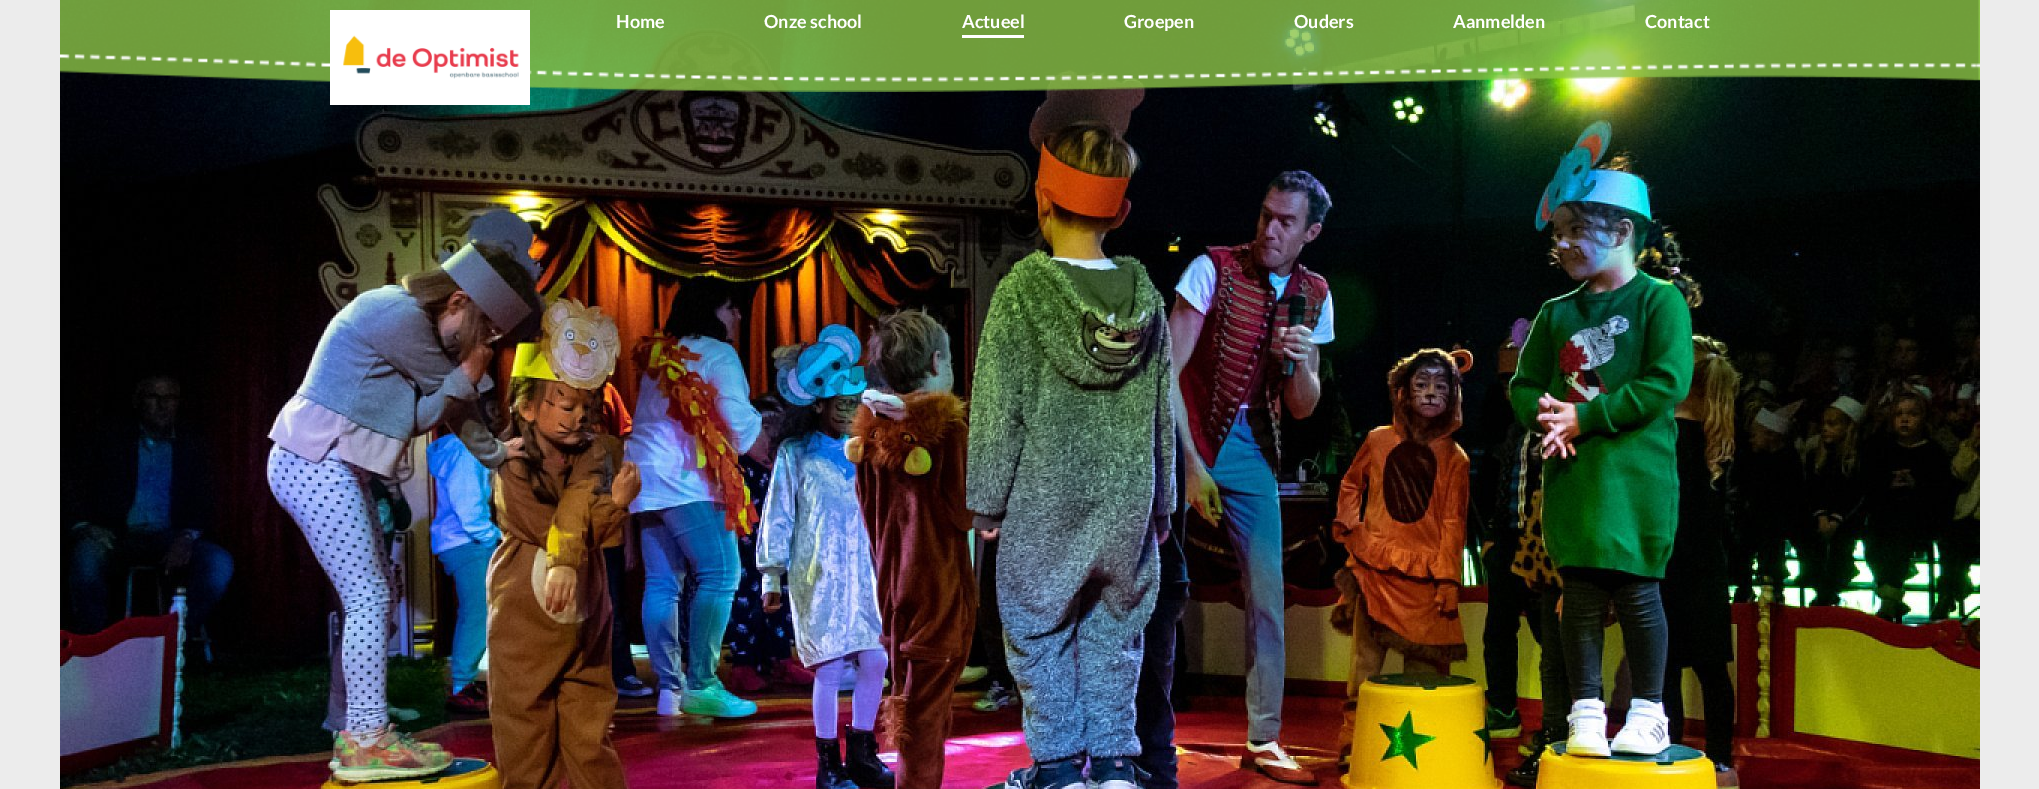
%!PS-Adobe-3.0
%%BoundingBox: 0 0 2039 789
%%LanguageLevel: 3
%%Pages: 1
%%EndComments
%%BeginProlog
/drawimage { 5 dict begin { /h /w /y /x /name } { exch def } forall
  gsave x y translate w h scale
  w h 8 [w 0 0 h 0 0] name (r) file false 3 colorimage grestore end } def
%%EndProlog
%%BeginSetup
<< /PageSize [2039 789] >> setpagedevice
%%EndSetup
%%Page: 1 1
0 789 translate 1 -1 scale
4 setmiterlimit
0.925 setgray
0 0 2039 789 rectfill
(images/1.raw) 60 0 1920 789 drawimage
(images/2.raw) 60 0 1920 92 drawimage
(images/3.raw) 330 10 200 95 drawimage
1 setgray
962 35 62 3 rectfill
/Lato-Bold [18 0 0 -18 0 0] selectfont
616 28 moveto (Home) show
764 28 moveto (Onze school) show
962 28 moveto (Actueel) show
1124 28 moveto (Groepen) show
1294 28 moveto (Ouders) show
1453 28 moveto (Aanmelden) show
1645 28 moveto (Contact) show
showpage
%%EOF
